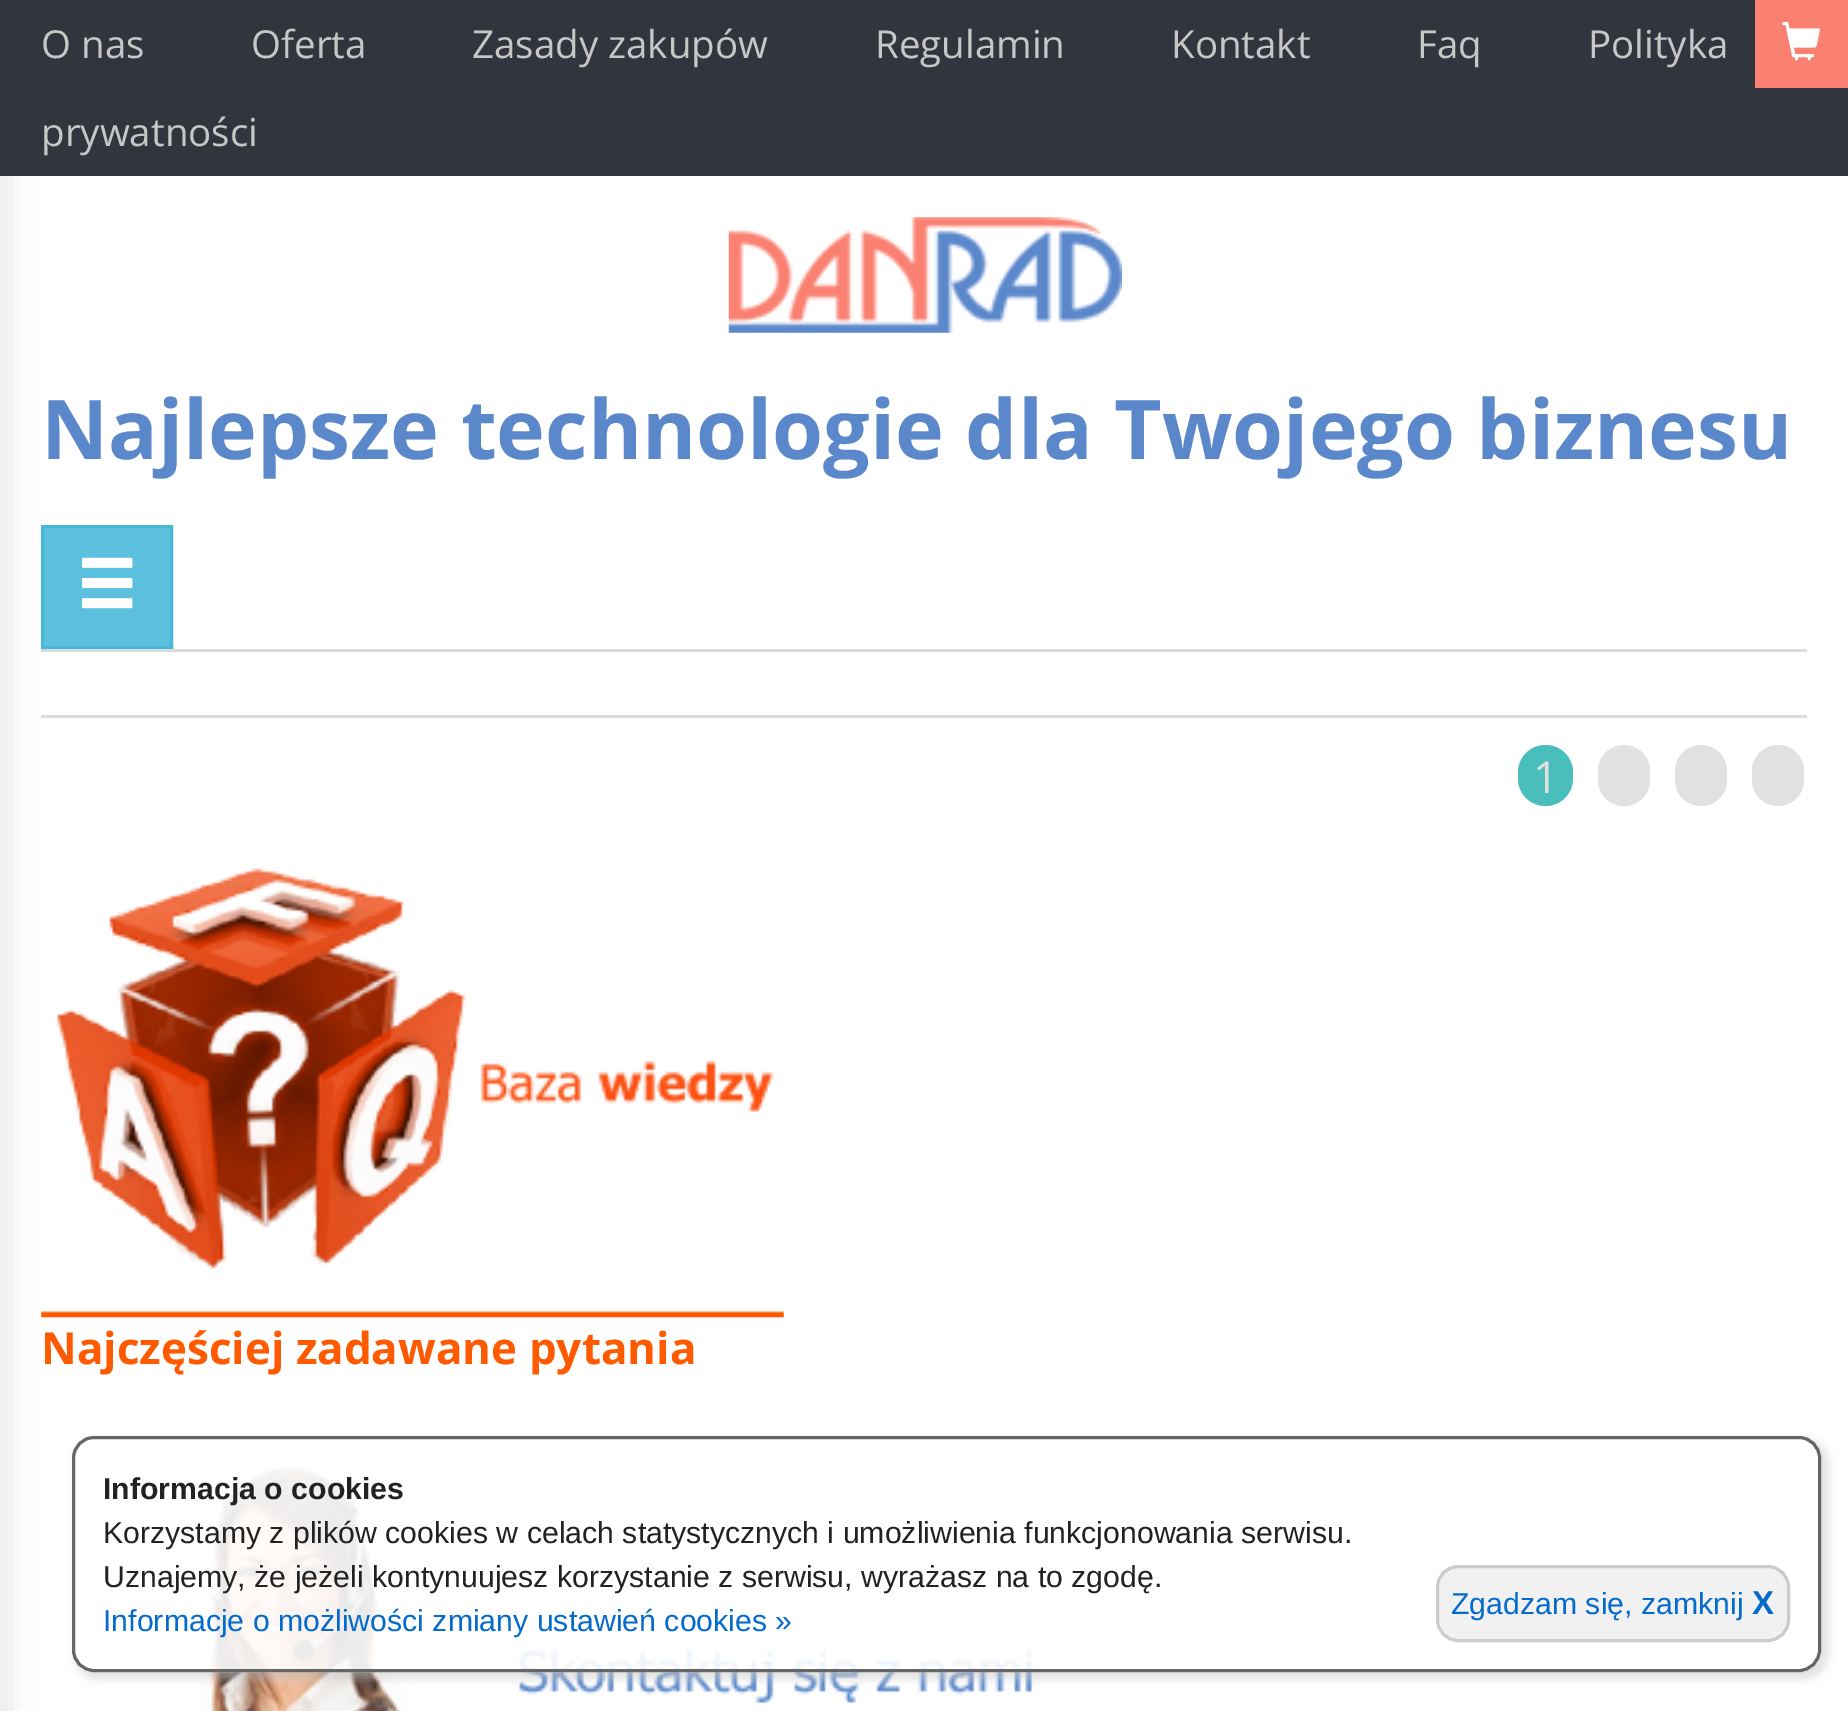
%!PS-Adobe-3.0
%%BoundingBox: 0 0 1848 1711
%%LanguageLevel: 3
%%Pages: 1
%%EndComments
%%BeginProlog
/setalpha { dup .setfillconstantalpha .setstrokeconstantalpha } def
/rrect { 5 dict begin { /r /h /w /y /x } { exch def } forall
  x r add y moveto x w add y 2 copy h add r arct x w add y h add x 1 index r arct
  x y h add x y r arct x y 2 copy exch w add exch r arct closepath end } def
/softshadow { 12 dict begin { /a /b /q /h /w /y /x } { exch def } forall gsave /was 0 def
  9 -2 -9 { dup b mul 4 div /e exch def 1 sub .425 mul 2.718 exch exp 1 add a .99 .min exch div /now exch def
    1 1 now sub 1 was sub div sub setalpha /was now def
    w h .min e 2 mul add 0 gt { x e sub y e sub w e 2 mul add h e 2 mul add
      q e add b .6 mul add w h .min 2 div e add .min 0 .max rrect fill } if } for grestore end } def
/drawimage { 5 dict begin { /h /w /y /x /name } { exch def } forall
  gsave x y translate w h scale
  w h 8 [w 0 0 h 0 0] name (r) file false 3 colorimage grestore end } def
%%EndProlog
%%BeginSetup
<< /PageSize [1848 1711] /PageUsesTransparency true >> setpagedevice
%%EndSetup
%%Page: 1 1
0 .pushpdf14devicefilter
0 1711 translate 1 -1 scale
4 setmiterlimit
1 setgray
0 0 1848 1711 rectfill
0.192 0.208 0.239 setrgbcolor
0 0 1848 176 rectfill
0.357 0.753 0.871 setrgbcolor
newpath 42.5 526.5 moveto 171.5 526.5 lineto 171.5 647.5 lineto 42.5 647.5 lineto closepath gsave fill grestore
0.275 0.722 0.855 setrgbcolor
3 setlinewidth
stroke
0.859 setgray
41 649 1766 3 rectfill
41 715 1766 3 rectfill
(images/4.raw) 41 868 743 450 drawimage
0.196 setgray
-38 11 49 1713 0 12.5 0.1 softshadow
0.98 0.502 0.443 setrgbcolor
1755 0 93 88 rectfill
(images/1.raw) 1782 22 38 39 drawimage
(images/2.raw) 728 217 394 116 drawimage
(images/3.raw) 82 557 51 52 drawimage
0.29 0.745 0.741 setrgbcolor
1518 745 55 61 27.5 rrect fill
0.882 setgray
1598 745 52 61 26 rrect fill
1675 745 52 61 26 rrect fill
1752 745 52 61 26 rrect fill
(images/5.raw) 201 1461 832 250 drawimage
gsave
newpath 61 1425 moveto 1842 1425 lineto 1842 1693 lineto 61 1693 lineto closepath 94 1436 moveto 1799 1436 lineto 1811 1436 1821 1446 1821 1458 curveto 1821 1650 lineto 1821 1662 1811 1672 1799 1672 curveto 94 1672 lineto 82 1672 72 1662 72 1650 curveto 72 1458 lineto 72 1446 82 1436 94 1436 curveto closepath eoclip newpath
0.784 setgray
74 1438 1755 242 25 4 0.5 softshadow
grestore
(images/6.raw) 81 1444 1740 229 drawimage
0.4 setgray
73.5 1437.5 1746 233 20.5 rrect stroke
0.945 setgray
1437.5 1566.5 351 74 20.5 rrect gsave fill grestore
0.8 setgray
stroke
/OpenSans-Regular [38.5 0 0 -38.5 0 0] selectfont
0.78 setgray
41 58 moveto (O nas) show
251 58 moveto (Oferta) show
472 58 moveto (Zasady zakupów) show
875 58 moveto (Regulamin) show
1171 58 moveto (Kontakt) show
1417 58 moveto (Faq) show
1588 58 moveto (Polityka) show
41 146 moveto (prywatności) show
/OpenSans-Bold [82.5 0 0 -82.5 0 0] selectfont
0.357 0.533 0.796 setrgbcolor
41 459 moveto (Najlepsze technologie dla Twojego biznesu) show
/OpenSans-Regular [44 0 0 -44 0 0] selectfont
0.882 setgray
1533 793 moveto (1) show
/OpenSans-Bold [44 0 0 -44 0 0] selectfont
1 0.353 0 setrgbcolor
41 1364 moveto (Najczęściej zadawane pytania) show
/LiberationSans-Bold [30.25 0 0 -30.25 0 0] selectfont
0.133 setgray
103 1499 moveto (Informacja o cookies) show
/LiberationSans-Regular [30.25 0 0 -30.25 0 0] selectfont
103 1543 moveto (Korzystamy z plików cookies w celach statystycznych i umożliwienia funkcjonowania serwisu.) show
103 1587 moveto (Uznajemy, że jeżeli kontynuujesz korzystanie z serwisu, wyrażasz na to zgodę.) show
0.016 0.42 0.8 setrgbcolor
103 1631 moveto (Informacje o możliwości zmiany ustawień cookies ») show
1451 1614 moveto (Zgadzam się, zamknij) show
/LiberationSans-Bold [33 0 0 -33 0 0] selectfont
1752 1614 moveto (X) show
.poppdf14devicefilter showpage
%%EOF
